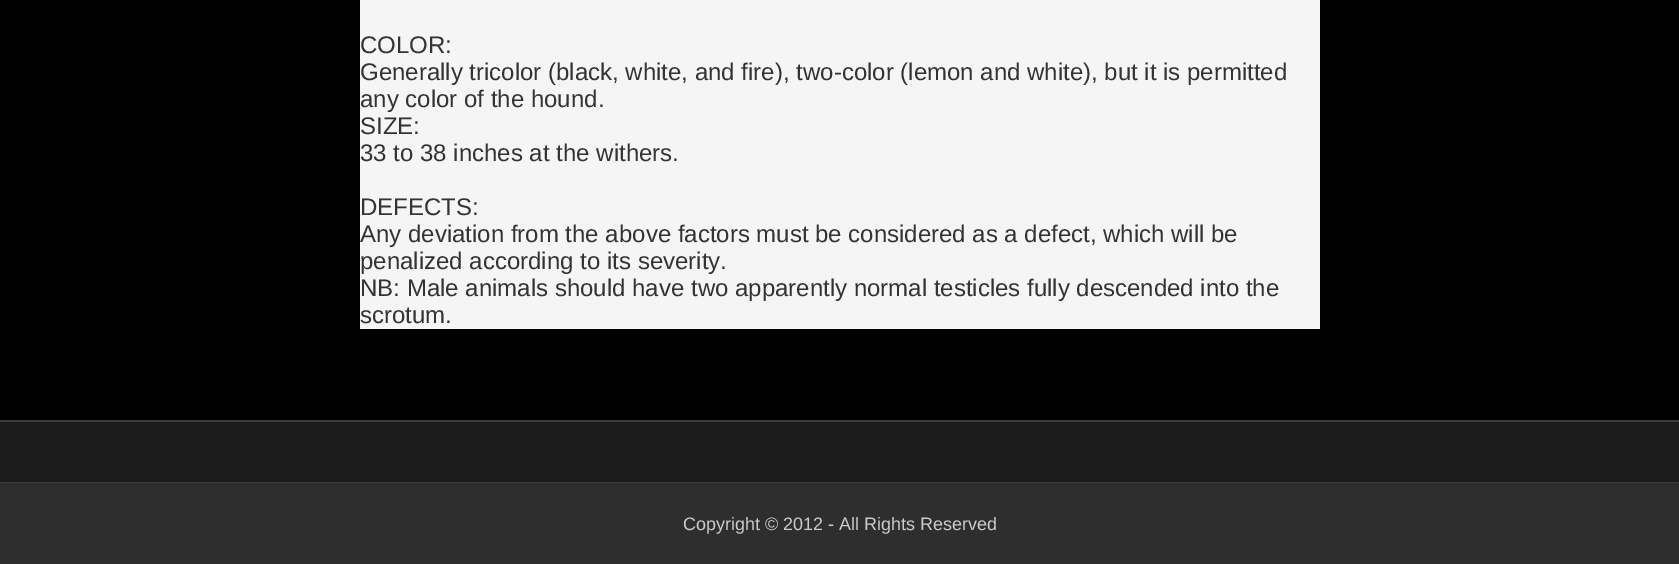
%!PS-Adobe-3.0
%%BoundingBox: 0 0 1679 564
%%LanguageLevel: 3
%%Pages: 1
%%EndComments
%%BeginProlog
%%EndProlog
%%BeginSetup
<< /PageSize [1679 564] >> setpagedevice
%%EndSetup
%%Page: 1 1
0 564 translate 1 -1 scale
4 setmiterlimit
0 setgray
0 0 1679 564 rectfill
0.231 setgray
0 420 1679 2 rectfill
0.961 setgray
360 0 960 329 rectfill
0.106 setgray
0 422 1679 60 rectfill
0.231 setgray
0 482 1679 1 rectfill
0.18 setgray
0 483 1679 81 rectfill
/LiberationSans-Regular [24 0 0 -24 0 0] selectfont
0.2 setgray
360 53 moveto (COLOR:) show
360 80 moveto (Generally tricolor \(black, white, and fire\), two-color \(lemon and white\), but it is permitted) show
360 107 moveto (any color of the hound.) show
360 134 moveto (SIZE:) show
360 161 moveto (33 to 38 inches at the withers.) show
360 215 moveto (DEFECTS:) show
360 242 moveto (Any deviation from the above factors must be considered as a defect, which will be) show
360 269 moveto (penalized according to its severity.) show
360 296 moveto (NB: Male animals should have two apparently normal testicles fully descended into the) show
360 323 moveto (scrotum.) show
/LiberationSans-Regular [18 0 0 -18 0 0] selectfont
0.8 setgray
683 530 moveto (Copyright © 2012 - All Rights Reserved) show
showpage
%%EOF
